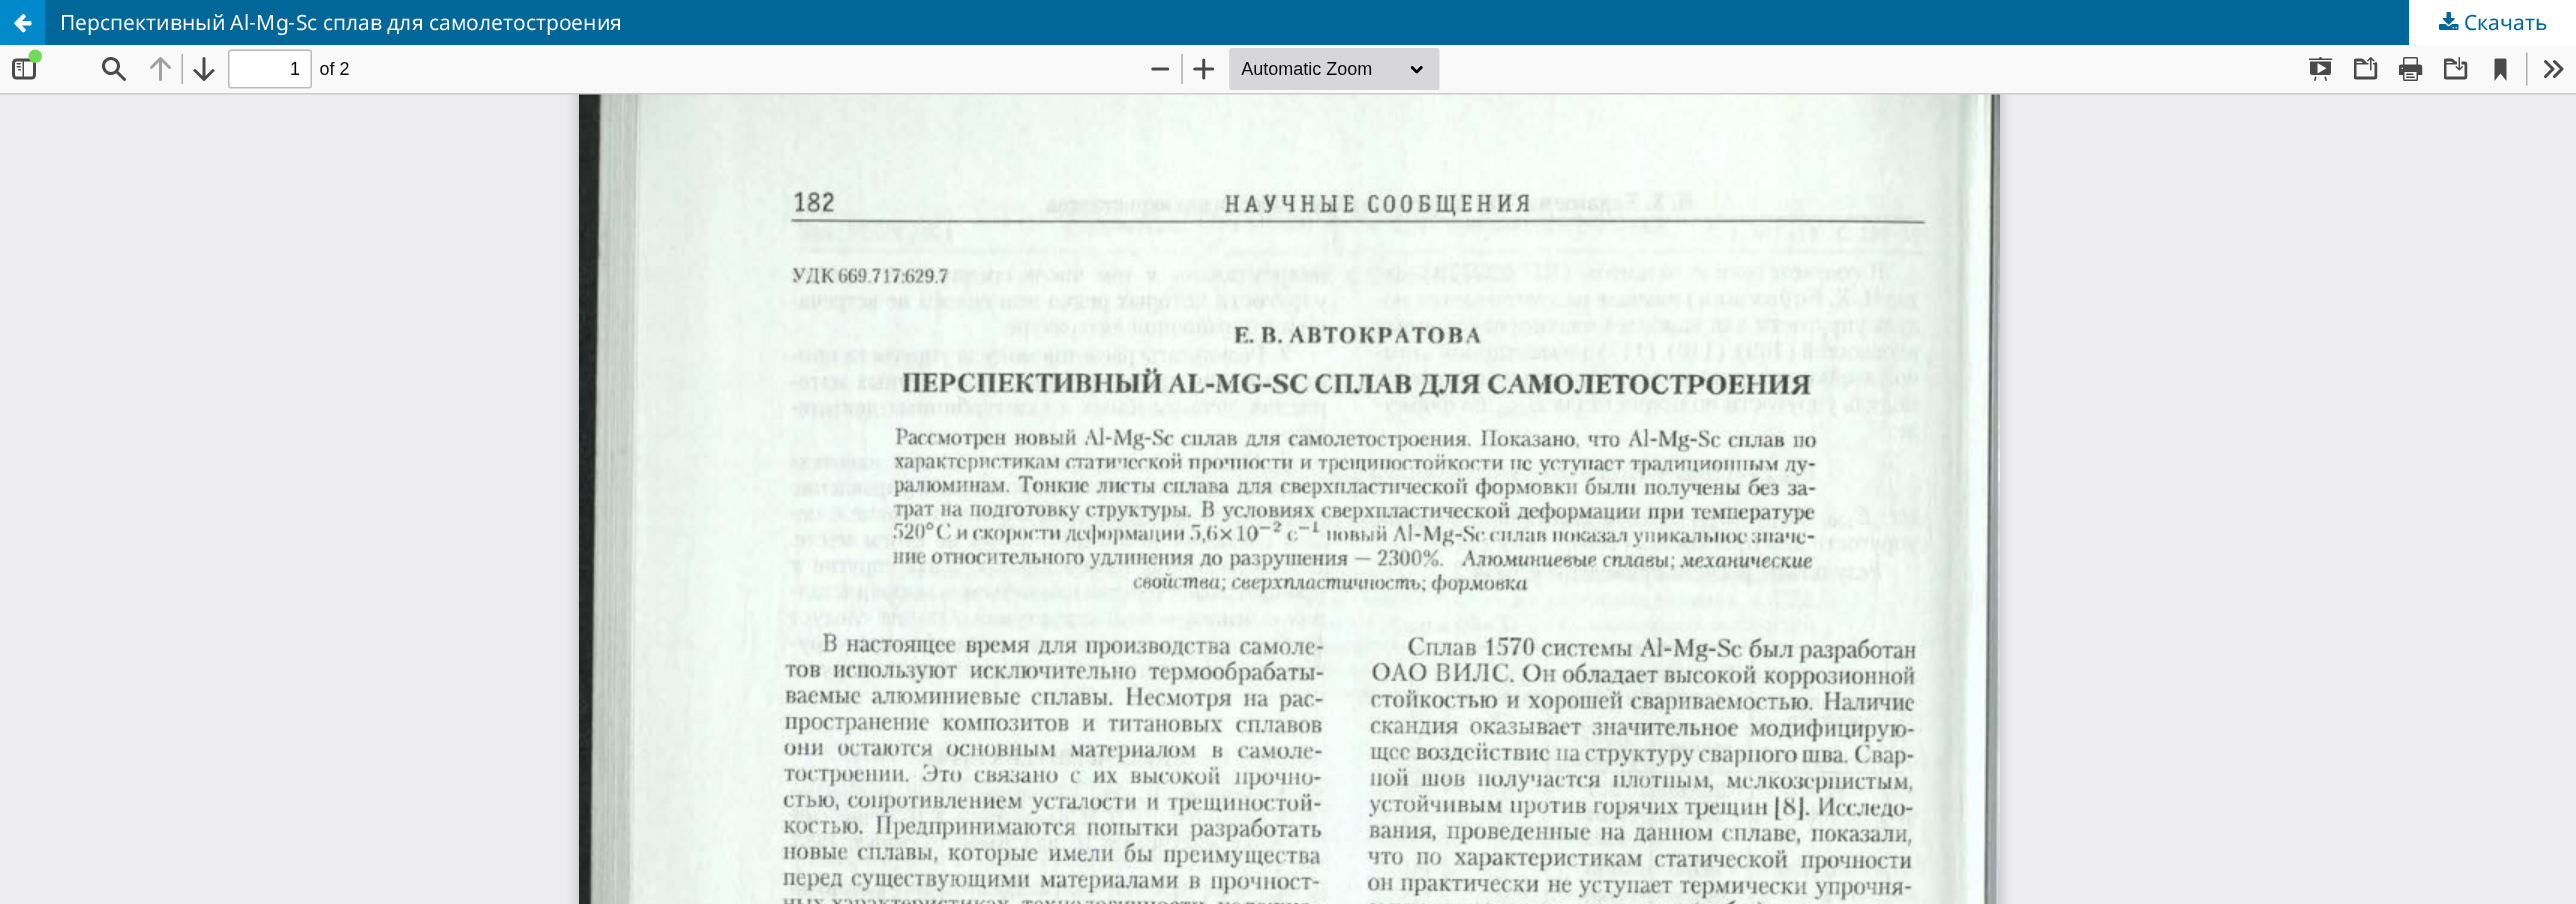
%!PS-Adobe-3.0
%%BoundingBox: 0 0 2576 904
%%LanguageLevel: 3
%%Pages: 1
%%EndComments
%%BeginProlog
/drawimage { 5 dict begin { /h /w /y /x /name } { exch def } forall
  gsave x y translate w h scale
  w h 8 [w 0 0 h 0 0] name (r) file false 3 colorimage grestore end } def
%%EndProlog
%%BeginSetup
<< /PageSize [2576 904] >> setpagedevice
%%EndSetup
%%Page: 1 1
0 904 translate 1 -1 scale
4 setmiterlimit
1 setgray
0 0 2576 904 rectfill
0 0.404 0.596 setrgbcolor
45 0 2364 45 rectfill
0 0.541 0.796 setrgbcolor
0 0 45 45 rectfill
(images/1.raw) 14 14 18 19 drawimage
(images/2.raw) 2439 12 20 18 drawimage
(images/3.raw) 0 45 2576 859 drawimage
/NotoSans-Regular [21 0 0 -21 0 0] selectfont
1 setgray
60 30 moveto (Перспективный Al-Mg-Sc сплав для самолетостроения) show
0 0.404 0.596 setrgbcolor
2464 30 moveto (Скачать) show
showpage
%%EOF
